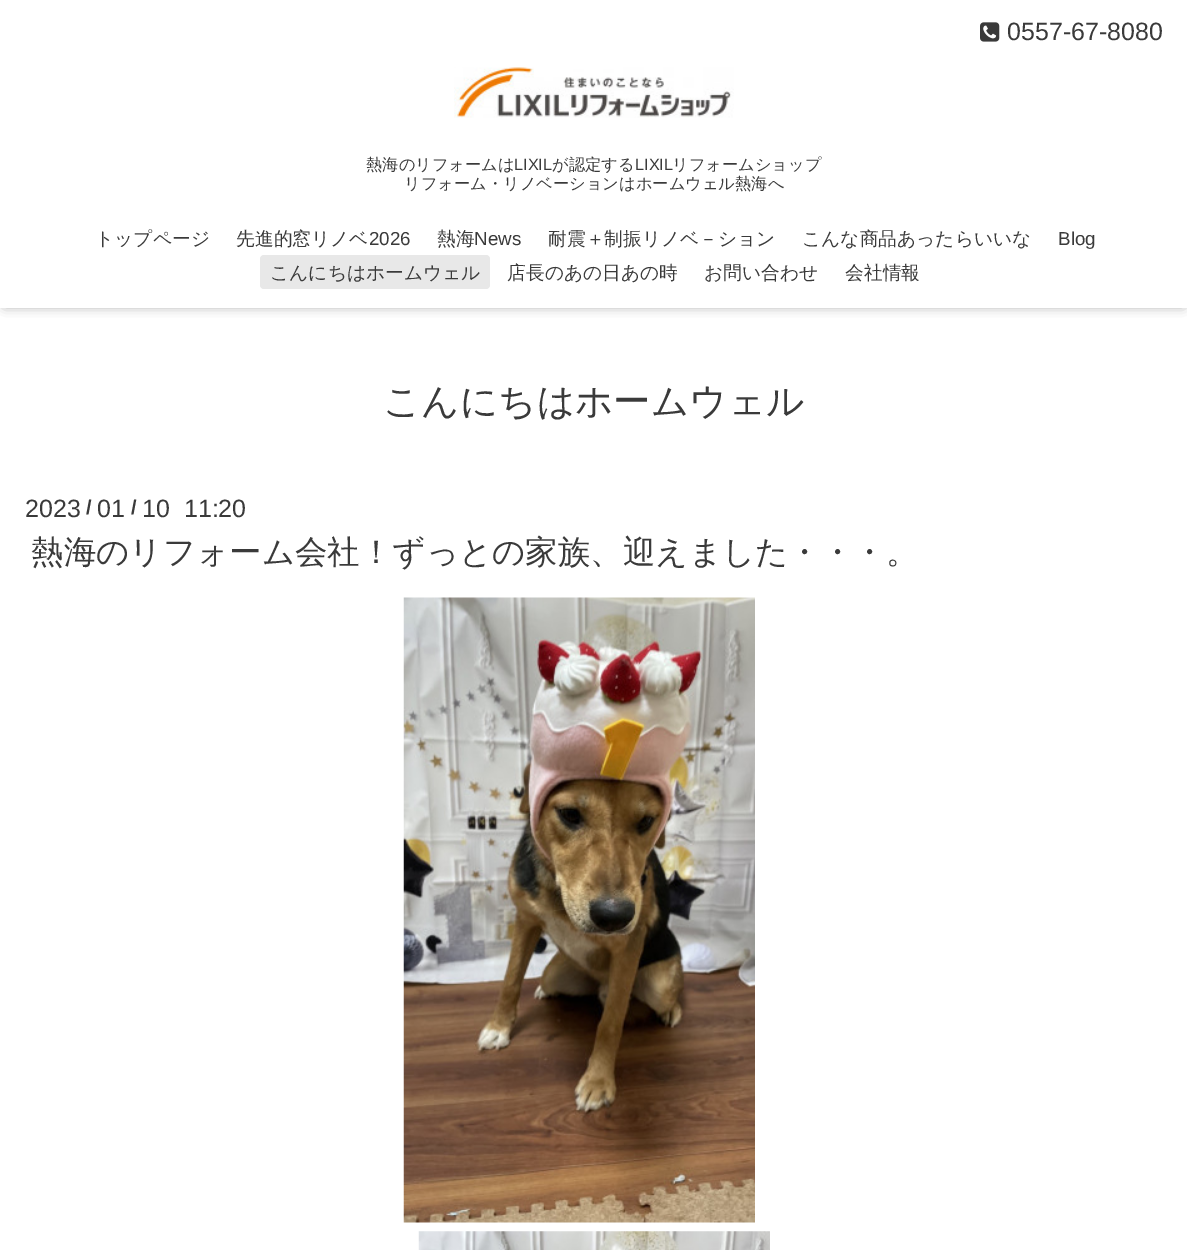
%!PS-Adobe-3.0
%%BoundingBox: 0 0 1187 1250
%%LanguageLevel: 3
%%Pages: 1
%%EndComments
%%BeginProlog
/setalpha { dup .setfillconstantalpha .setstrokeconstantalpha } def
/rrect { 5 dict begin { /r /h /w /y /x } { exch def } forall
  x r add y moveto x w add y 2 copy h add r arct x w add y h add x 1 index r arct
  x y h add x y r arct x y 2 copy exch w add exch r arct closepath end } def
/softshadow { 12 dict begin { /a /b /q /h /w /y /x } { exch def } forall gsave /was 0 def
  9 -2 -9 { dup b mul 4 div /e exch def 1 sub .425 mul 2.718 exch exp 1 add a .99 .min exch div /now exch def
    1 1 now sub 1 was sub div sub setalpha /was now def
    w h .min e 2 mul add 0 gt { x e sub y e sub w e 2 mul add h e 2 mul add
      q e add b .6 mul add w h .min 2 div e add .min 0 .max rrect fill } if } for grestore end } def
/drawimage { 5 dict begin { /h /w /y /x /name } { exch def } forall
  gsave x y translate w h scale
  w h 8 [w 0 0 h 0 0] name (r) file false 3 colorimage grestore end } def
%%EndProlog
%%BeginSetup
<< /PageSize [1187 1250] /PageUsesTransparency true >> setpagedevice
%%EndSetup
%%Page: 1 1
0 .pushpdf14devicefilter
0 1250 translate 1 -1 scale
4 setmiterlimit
1 setgray
0 0 1187 1250 rectfill
0 setgray
5 6 1178 298 0 6 0.6 softshadow
1 setgray
0 0 1187 308 rectfill
(images/1.raw) 980 22 20 20 drawimage
(images/2.raw) 454 67 280 51 drawimage
0.91 setgray
260 255 230 34 4 rrect fill
(images/3.raw) 403 597 352 626 drawimage
(images/4.raw) 418 1231 352 19 drawimage
/LiberationSans-Regular [25 0 0 -25 0 0] selectfont
0.227 setgray
1007 40 moveto (0557-67-8080) show
/WenQuanYiZenHei-Medium [16.25 0 0 -16.25 0 0] selectfont
366 170 moveto (熱海のリフォームは) show
/LiberationSans-Regular [16.25 0 0 -16.25 0 0] selectfont
514 170 moveto (LIXIL) show
/WenQuanYiZenHei-Medium [16.25 0 0 -16.25 0 0] selectfont
552 170 moveto (が認定する) show
/LiberationSans-Regular [16.25 0 0 -16.25 0 0] selectfont
635 170 moveto (LIXIL) show
/WenQuanYiZenHei-Medium [16.25 0 0 -16.25 0 0] selectfont
672 170 moveto (リフォームショップ) show
404 189 moveto (リフォーム・リノベーションはホームウェル熱海へ) show
/WenQuanYiZenHei-Medium [18.75 0 0 -18.75 0 0] selectfont
95 245 moveto (トップページ) show
236 245 moveto (先進的窓リノベ) show
/LiberationSans-Regular [18.75 0 0 -18.75 0 0] selectfont
369 245 moveto (2026) show
/WenQuanYiZenHei-Medium [18.75 0 0 -18.75 0 0] selectfont
437 245 moveto (熱海) show
/LiberationSans-Regular [18.75 0 0 -18.75 0 0] selectfont
474 245 moveto (News) show
/WenQuanYiZenHei-Medium [18.75 0 0 -18.75 0 0] selectfont
548 245 moveto (耐震＋制振リノベ－ション) show
802 245 moveto (こんな商品あったらいいな) show
/LiberationSans-Regular [18.75 0 0 -18.75 0 0] selectfont
1058 245 moveto (Blog) show
/WenQuanYiZenHei-Medium [18.75 0 0 -18.75 0 0] selectfont
270 279 moveto (こんにちはホームウェル) show
507 279 moveto (店長のあの日あの時) show
704 279 moveto (お問い合わせ) show
845 279 moveto (会社情報) show
/WenQuanYiZenHei-Medium [37.5 0 0 -37.5 0 0] selectfont
383 414 moveto (こんにちはホームウェル) show
/LiberationSans-Regular [25 0 0 -25 0 0] selectfont
25 517 moveto (2023) show
/LiberationSans-Bold [20 0 0 -20 0 0] selectfont
86 514 moveto (/) show
/LiberationSans-Regular [25 0 0 -25 0 0] selectfont
97 517 moveto (01) show
/LiberationSans-Bold [20 0 0 -20 0 0] selectfont
131 514 moveto (/) show
/LiberationSans-Regular [25 0 0 -25 0 0] selectfont
142 517 moveto (10  11:20) show
/WenQuanYiZenHei-Medium [32.5 0 0 -32.5 0 0] selectfont
31 563 moveto (熱海のリフォーム会社！ずっとの家族、迎えました・・・。) show
.poppdf14devicefilter showpage
%%EOF
